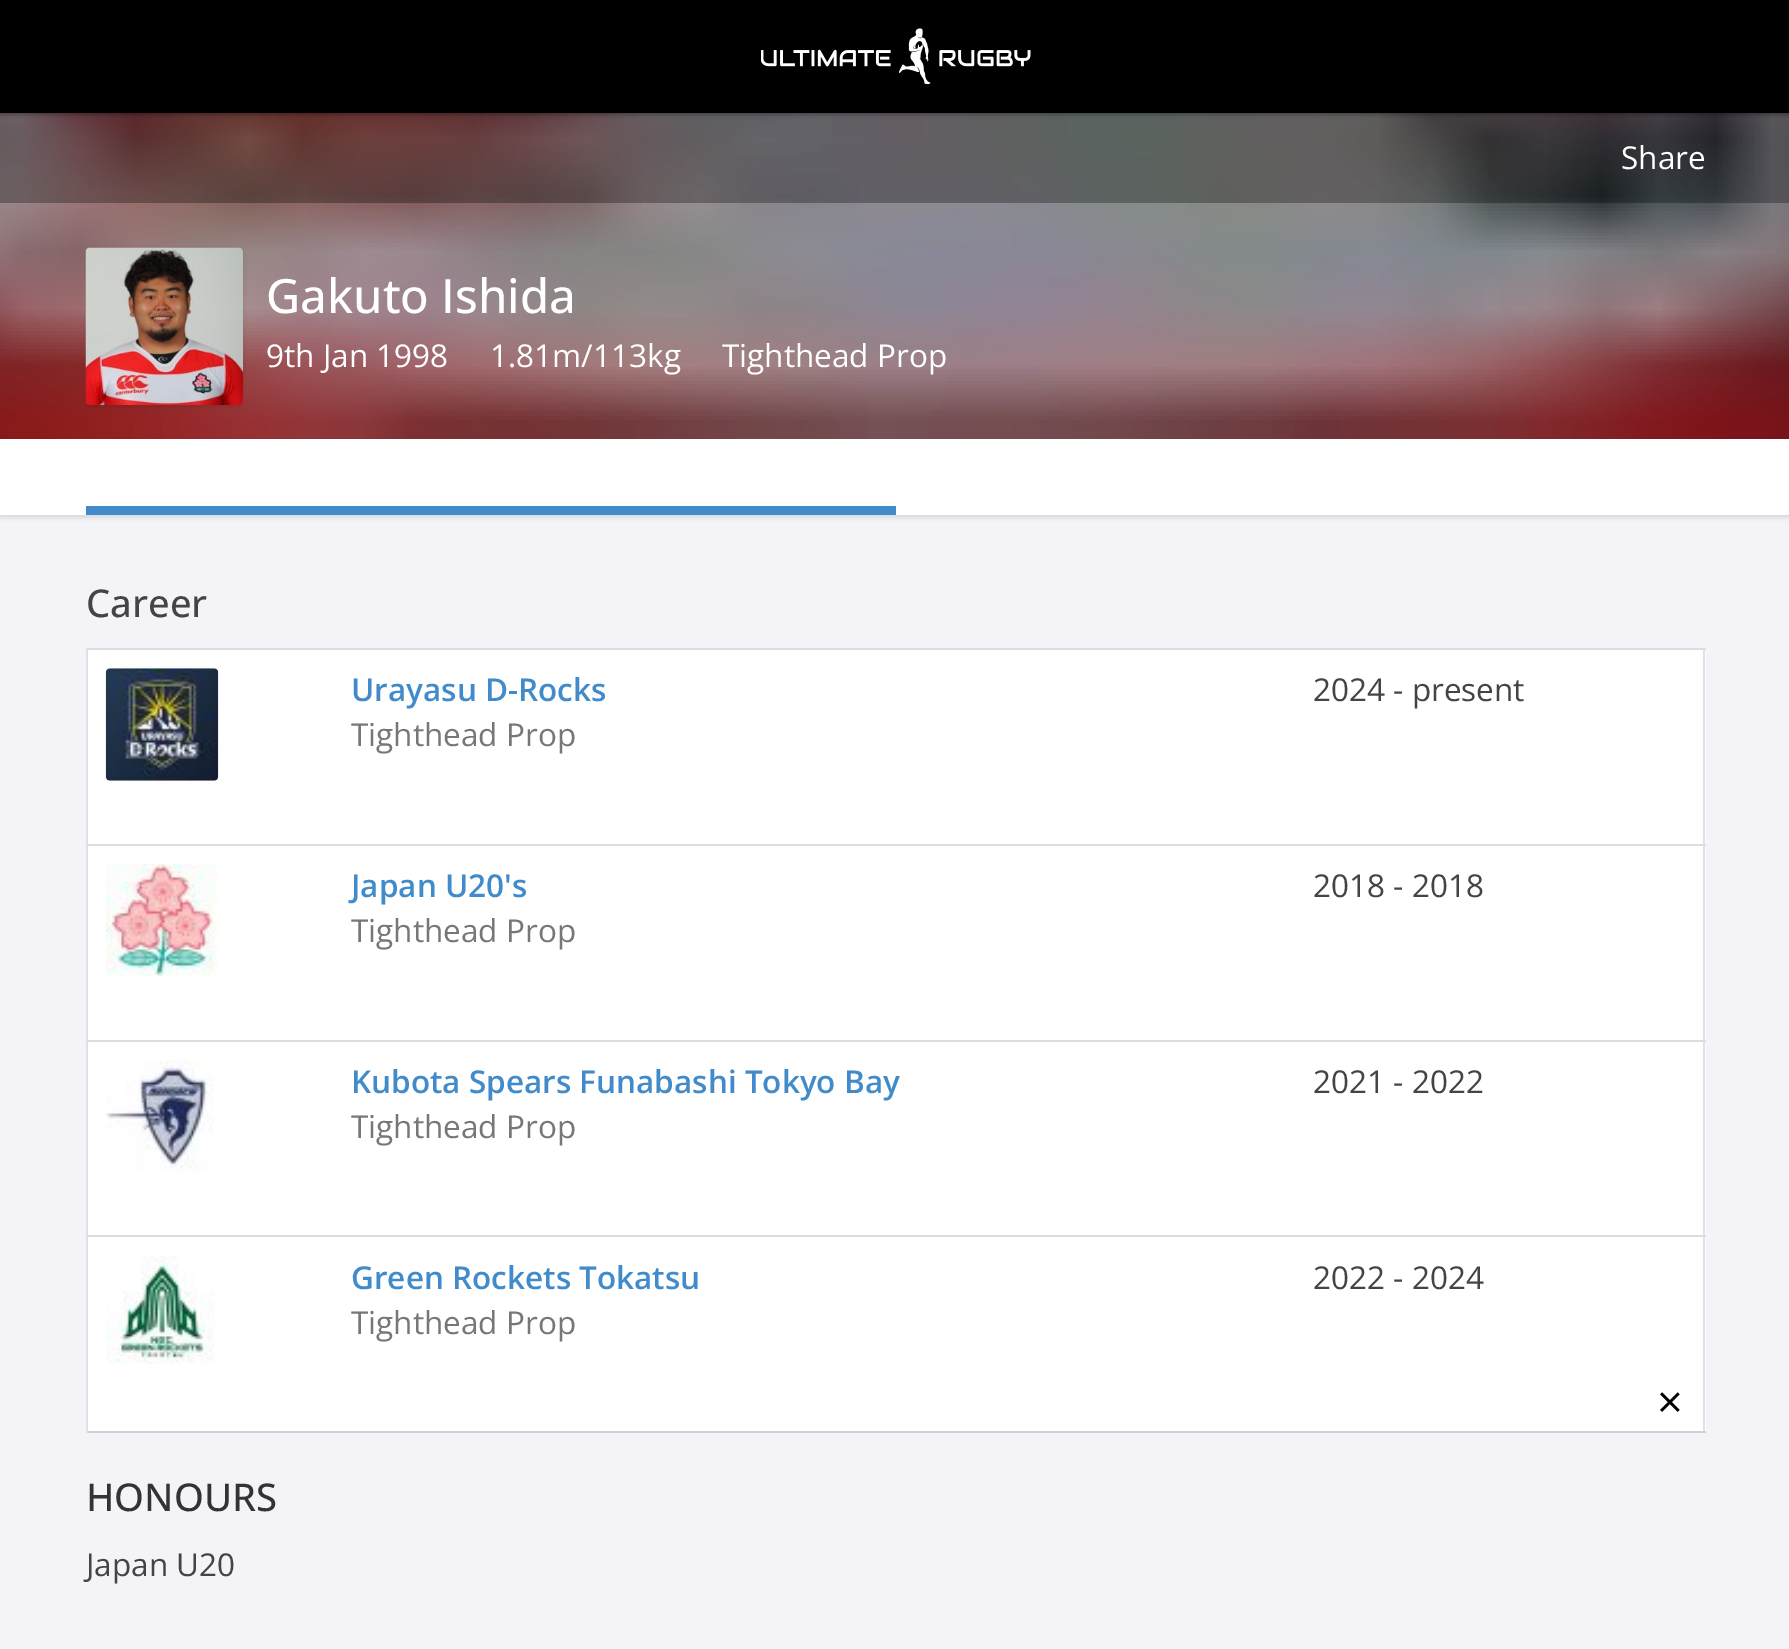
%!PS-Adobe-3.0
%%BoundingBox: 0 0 1789 1649
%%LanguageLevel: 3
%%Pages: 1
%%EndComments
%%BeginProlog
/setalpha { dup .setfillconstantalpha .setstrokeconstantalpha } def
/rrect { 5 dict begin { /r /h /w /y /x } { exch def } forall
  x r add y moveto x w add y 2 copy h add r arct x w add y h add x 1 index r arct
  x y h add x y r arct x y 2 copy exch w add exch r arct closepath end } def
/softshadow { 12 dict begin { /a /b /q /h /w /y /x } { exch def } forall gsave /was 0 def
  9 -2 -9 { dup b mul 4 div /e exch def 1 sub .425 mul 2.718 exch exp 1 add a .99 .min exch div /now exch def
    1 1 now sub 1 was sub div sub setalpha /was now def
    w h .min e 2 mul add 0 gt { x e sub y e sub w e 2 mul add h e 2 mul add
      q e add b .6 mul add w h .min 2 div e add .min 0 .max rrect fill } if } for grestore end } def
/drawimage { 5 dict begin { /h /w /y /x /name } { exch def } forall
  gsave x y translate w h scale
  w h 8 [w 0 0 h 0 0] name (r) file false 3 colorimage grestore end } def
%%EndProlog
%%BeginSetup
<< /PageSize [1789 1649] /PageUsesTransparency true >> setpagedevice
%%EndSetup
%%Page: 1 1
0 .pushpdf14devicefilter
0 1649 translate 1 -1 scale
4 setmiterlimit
0.953 0.953 0.973 setrgbcolor
0 0 1789 1649 rectfill
0.133 setgray
0 113 1789 326 rectfill
(images/2.raw) 0 113 1789 326 drawimage
0.3 setalpha
0 setgray
0 113 1789 90 rectfill
1 setalpha
0 2 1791 113 0 2 0.3 softshadow
0 0 1789 113 rectfill
(images/1.raw) 761 28 270 57 drawimage
86 250 157 157 5 2 0.1 softshadow
(images/3.raw) 85 247 158 158 drawimage
0 441 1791 77 0 2 0.1 softshadow
1 setgray
0 439 1789 76 rectfill
0.259 0.545 0.792 setrgbcolor
86 506 810 9 rectfill
1 setgray
88 650 1618 781 rectfill
0.875 0.878 0.894 setrgbcolor
1703 648 2 785 rectfill
0.816 0.82 0.835 setrgbcolor
86 1431 1620 2 rectfill
0.875 0.878 0.894 setrgbcolor
86 648 2 785 rectfill
(images/4.raw) 105 668 114 113 drawimage
0.867 setgray
86 648 1620 2 rectfill
(images/5.raw) 106 864 111 113 drawimage
86 844 1620 2 rectfill
(images/6.raw) 106 1060 108 112 drawimage
86 1040 1620 2 rectfill
(images/7.raw) 106 1256 109 108 drawimage
86 1235 1620 2 rectfill
/OpenSans-Regular [31.5 0 0 -31.5 0 0] selectfont
1 setgray
1621 169 moveto (Share) show
/OpenSans-Medium [47.25 0 0 -47.25 0 0] selectfont
266 313 moveto (Gakuto Ishida) show
/OpenSans-Regular [31.5 0 0 -31.5 0 0] selectfont
266 367 moveto (9th Jan 1998) show
490 367 moveto (1.81m/113kg) show
722 367 moveto (Tighthead Prop) show
/OpenSans-Medium [38.25 0 0 -38.25 0 0] selectfont
0.267 setgray
86 617 moveto (Career) show
/OpenSans-SemiBold [31.5 0 0 -31.5 0 0] selectfont
0.259 0.545 0.792 setrgbcolor
351 701 moveto (Urayasu D-Rocks) show
/OpenSans-Regular [31.5 0 0 -31.5 0 0] selectfont
0.467 setgray
351 746 moveto (Tighthead Prop) show
0.267 setgray
1313 701 moveto (2024 - present) show
/OpenSans-SemiBold [31.5 0 0 -31.5 0 0] selectfont
0.259 0.545 0.792 setrgbcolor
351 897 moveto (Japan U20's) show
/OpenSans-Regular [31.5 0 0 -31.5 0 0] selectfont
0.467 setgray
351 942 moveto (Tighthead Prop) show
0.267 setgray
1313 897 moveto (2018 - 2018) show
/OpenSans-SemiBold [31.5 0 0 -31.5 0 0] selectfont
0.259 0.545 0.792 setrgbcolor
351 1093 moveto (Kubota Spears Funabashi Tokyo Bay) show
/OpenSans-Regular [31.5 0 0 -31.5 0 0] selectfont
0.467 setgray
351 1138 moveto (Tighthead Prop) show
0.267 setgray
1313 1093 moveto (2021 - 2022) show
/OpenSans-SemiBold [31.5 0 0 -31.5 0 0] selectfont
0.259 0.545 0.792 setrgbcolor
351 1289 moveto (Green Rockets Tokatsu) show
/OpenSans-Regular [31.5 0 0 -31.5 0 0] selectfont
0.467 setgray
351 1334 moveto (Tighthead Prop) show
0.267 setgray
1313 1289 moveto (2022 - 2024) show
/OpenSans-Medium [38.25 0 0 -38.25 0 0] selectfont
0.2 setgray
86 1511 moveto (HONOURS) show
/OpenSans-Regular [31.5 0 0 -31.5 0 0] selectfont
0.267 setgray
86 1576 moveto (Japan U20) show
/OpenSans-Regular [45 0 0 -45 0 0] selectfont
0 setgray
1657 1418 moveto (×) show
.poppdf14devicefilter showpage
%%EOF
